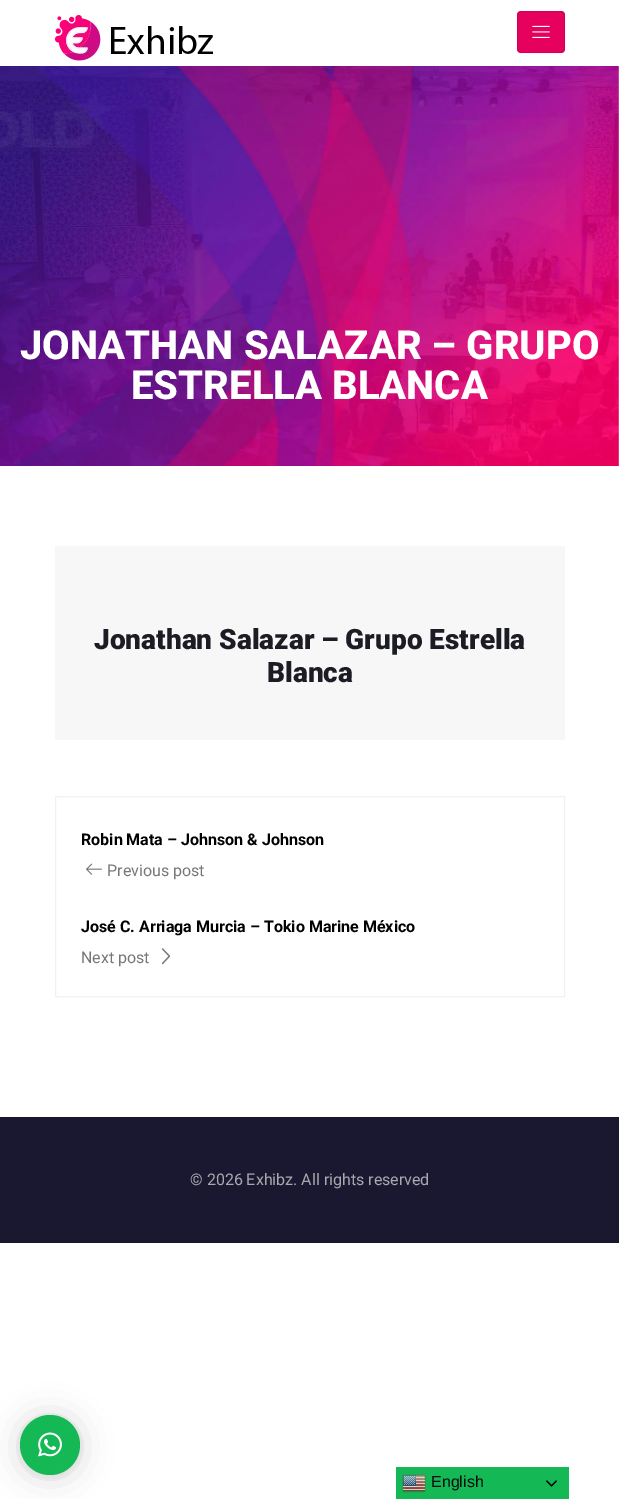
%!PS-Adobe-3.0
%%BoundingBox: 0 0 619 1499
%%LanguageLevel: 3
%%Pages: 1
%%EndComments
%%BeginProlog
/setalpha { dup .setfillconstantalpha .setstrokeconstantalpha } def
/rrect { 5 dict begin { /r /h /w /y /x } { exch def } forall
  x r add y moveto x w add y 2 copy h add r arct x w add y h add x 1 index r arct
  x y h add x y r arct x y 2 copy exch w add exch r arct closepath end } def
/softshadow { 12 dict begin { /a /b /q /h /w /y /x } { exch def } forall gsave /was 0 def
  9 -2 -9 { dup b mul 4 div /e exch def 1 sub .425 mul 2.718 exch exp 1 add a .99 .min exch div /now exch def
    1 1 now sub 1 was sub div sub setalpha /was now def
    w h .min e 2 mul add 0 gt { x e sub y e sub w e 2 mul add h e 2 mul add
      q e add b .6 mul add w h .min 2 div e add .min 0 .max rrect fill } if } for grestore end } def
/drawimage { 5 dict begin { /h /w /y /x /name } { exch def } forall
  gsave x y translate w h scale
  w h 8 [w 0 0 h 0 0] name (r) file false 3 colorimage grestore end } def
%%EndProlog
%%BeginSetup
<< /PageSize [619 1499] /PageUsesTransparency true >> setpagedevice
%%EndSetup
%%Page: 1 1
0 .pushpdf14devicefilter
0 1499 translate 1 -1 scale
4 setmiterlimit
1 setgray
0 0 619 1499 rectfill
(images/1.raw) 55 15 158 46 drawimage
0.906 0.004 0.369 setrgbcolor
517 11 48 42 4 rrect fill
0.1 setalpha
0 setgray
517.5 11.5 47 41 3.5 rrect stroke
1 setalpha
(images/2.raw) 532 25 18 13 drawimage
(images/3.raw) 0 66 619 400 drawimage
0.969 setgray
55 546 510 194 rectfill
0.945 setgray
55.5 796.5 509 200 rectstroke
(images/4.raw) 86 863 16 12 drawimage
(images/5.raw) 161 948 10 17 drawimage
0.102 0.094 0.192 setrgbcolor
0 1117 619 126 rectfill
0 setgray
20 1417 60 60 30 16 0.16 softshadow
20 1416 60 60 30 3 0.06 softshadow
0.078 0.722 0.333 setrgbcolor
newpath 50 1445 30 0 360 arc closepath fill
(images/6.raw) 38 1432 24 25 drawimage
396 1467 173 32 rectfill
(images/7.raw) 402 1474 24 19 drawimage
(images/8.raw) 546 1480 11 7 drawimage
/Roboto-ExtraBold [40 0 0 -40 0 0] selectfont
1 setgray
20 359 moveto (JONATHAN SALAZAR – GRUPO) show
131 399 moveto (ESTRELLA BLANCA) show
/Roboto-Black [28 0 0 -28 0 0] selectfont
0.11 0.11 0.141 setrgbcolor
94 649 moveto (Jonathan Salazar – Grupo Estrella) show
267 682 moveto (Blanca) show
/Roboto-Bold [16 0 0 -16 0 0] selectfont
0 setgray
81 845 moveto (Robin Mata – Johnson & Johnson) show
/Roboto-Regular [16 0 0 -16 0 0] selectfont
0.467 setgray
107 876 moveto (Previous post) show
/Roboto-Bold [16 0 0 -16 0 0] selectfont
0 setgray
81 932 moveto (José C. Arriaga Murcia – Tokio Marine México) show
/Roboto-Regular [16 0 0 -16 0 0] selectfont
0.467 setgray
81 963 moveto (Next post) show
0.659 0.659 0.678 setrgbcolor
190 1185 moveto (© 2026 Exhibz. All rights reserved) show
/LiberationSans-Regular [16 0 0 -16 0 0] selectfont
0.039 setgray
431 1487 moveto (English) show
.poppdf14devicefilter showpage
%%EOF
